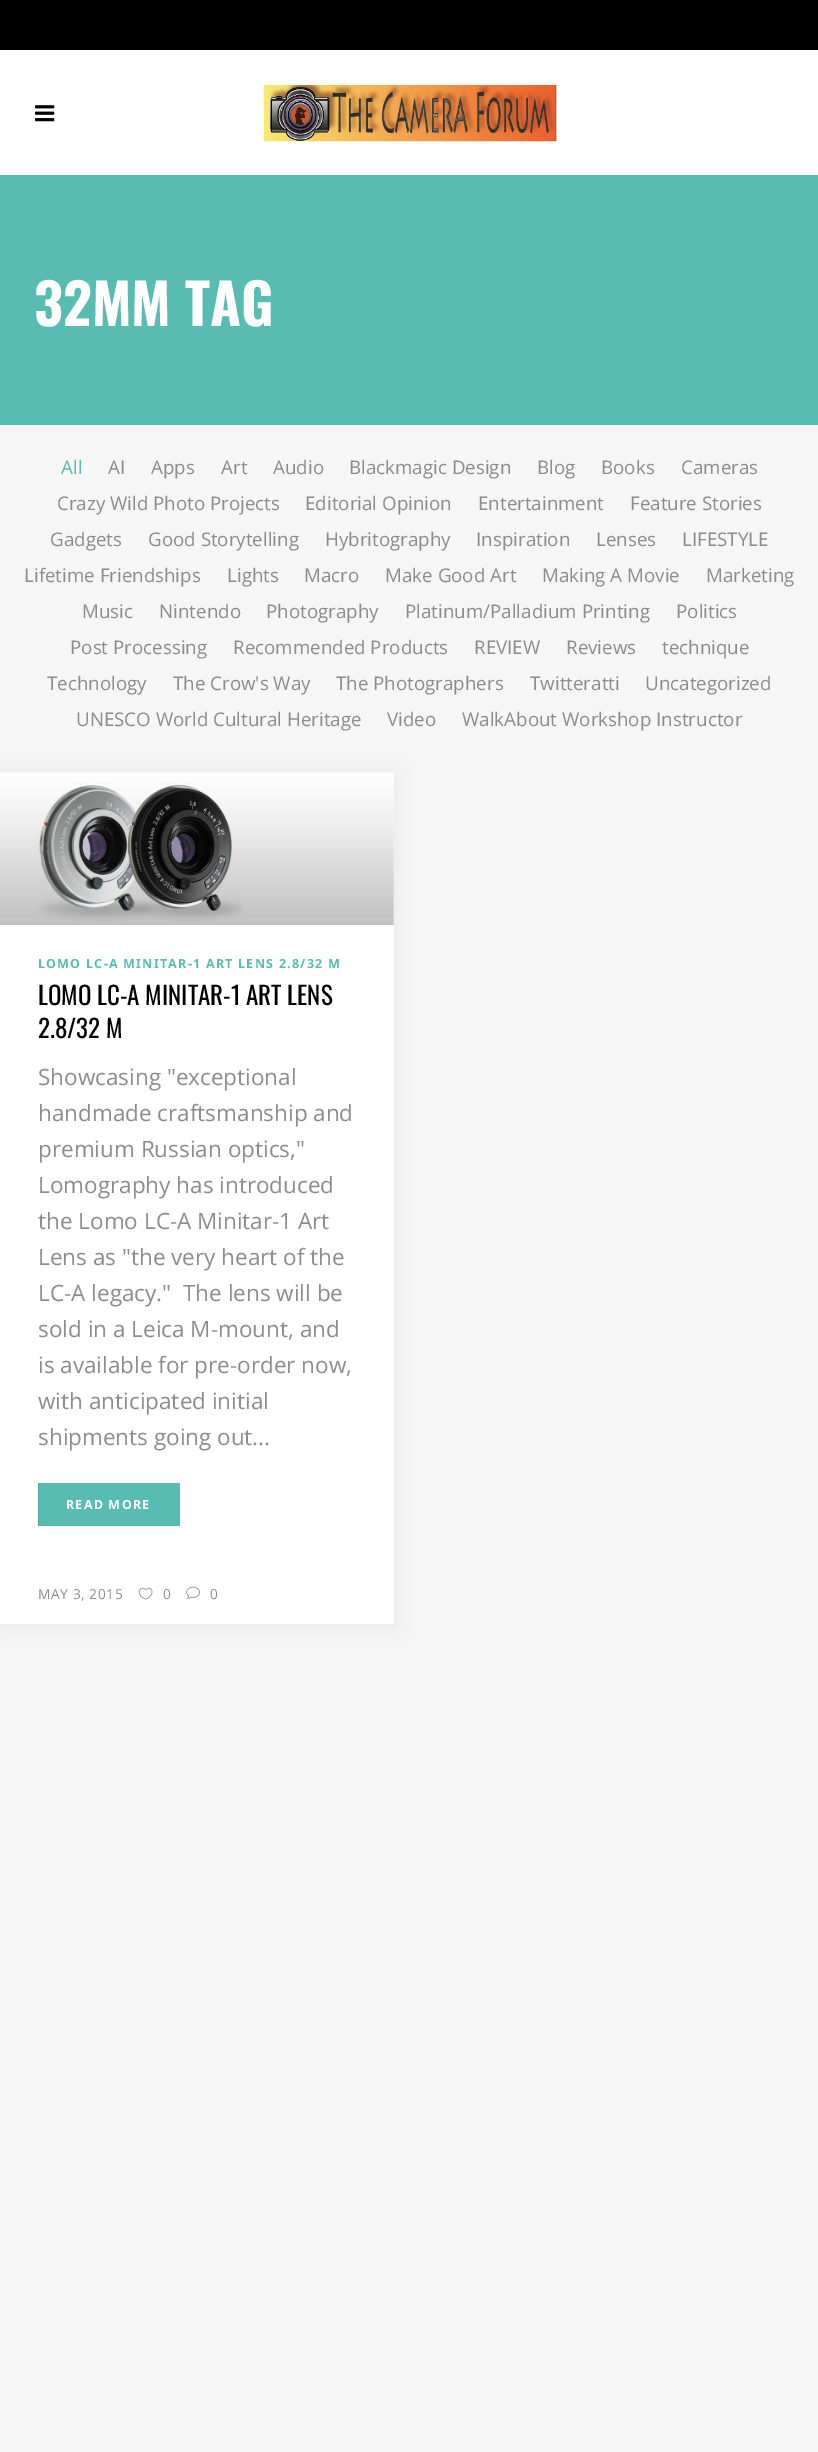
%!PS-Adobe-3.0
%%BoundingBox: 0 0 818 2452
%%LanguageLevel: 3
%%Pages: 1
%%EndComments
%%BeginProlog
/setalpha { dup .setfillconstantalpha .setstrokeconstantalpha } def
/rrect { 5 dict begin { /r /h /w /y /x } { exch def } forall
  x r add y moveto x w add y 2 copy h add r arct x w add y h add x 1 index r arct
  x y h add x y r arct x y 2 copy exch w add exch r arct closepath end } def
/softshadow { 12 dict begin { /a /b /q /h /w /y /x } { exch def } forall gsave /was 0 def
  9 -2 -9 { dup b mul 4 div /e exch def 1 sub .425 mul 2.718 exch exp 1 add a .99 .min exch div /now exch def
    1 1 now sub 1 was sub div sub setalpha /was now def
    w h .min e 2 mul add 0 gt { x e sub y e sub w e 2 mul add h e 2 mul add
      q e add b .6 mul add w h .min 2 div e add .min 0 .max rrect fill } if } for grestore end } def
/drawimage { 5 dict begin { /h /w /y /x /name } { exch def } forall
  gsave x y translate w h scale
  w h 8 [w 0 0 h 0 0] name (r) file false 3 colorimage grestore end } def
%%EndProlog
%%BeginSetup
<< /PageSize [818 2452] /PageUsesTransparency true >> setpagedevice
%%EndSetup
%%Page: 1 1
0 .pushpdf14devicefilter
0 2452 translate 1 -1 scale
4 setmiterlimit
0.965 setgray
0 0 818 2452 rectfill
0 setgray
0 0 818 50 rectfill
1 setgray
0 50 818 125 rectfill
(images/1.raw) 35 105 20 17 drawimage
(images/2.raw) 263 85 294 57 drawimage
0.345 0.737 0.702 setrgbcolor
0 175 818 250 rectfill
0.898 setgray
1 775 394 851 0 9.5 1 softshadow
1 setgray
0 773 394 851 rectfill
(images/3.raw) 0 772 394 153 drawimage
0.345 0.737 0.702 setrgbcolor
39 1483 141 43 rectfill
0.31 0.663 0.631 setrgbcolor
38 1483 1 43 rectfill
(images/4.raw) 138 1587 15 13 drawimage
(images/5.raw) 186 1586 14 13 drawimage
/Oswald-Bold [56.25 0 0 -56.25 0 0] selectfont
1 setgray
34 326 moveto (32MM TAG) show
/OpenSans-Regular [18.75 0 0 -18.75 0 0] selectfont
0.345 0.737 0.702 setrgbcolor
61 474 moveto (All) show
0.553 0.549 0.549 setrgbcolor
108 474 moveto (AI) show
151 474 moveto (Apps) show
221 474 moveto (Art) show
273 474 moveto (Audio) show
349 474 moveto (Blackmagic Design) show
537 474 moveto (Blog) show
601 474 moveto (Books) show
681 474 moveto (Cameras) show
57 510 moveto (Crazy Wild Photo Projects) show
305 510 moveto (Editorial Opinion) show
478 510 moveto (Entertainment) show
630 510 moveto (Feature Stories) show
50 546 moveto (Gadgets) show
148 546 moveto (Good Storytelling) show
325 546 moveto (Hybritography) show
476 546 moveto (Inspiration) show
596 546 moveto (Lenses) show
682 546 moveto (LIFESTYLE) show
24 582 moveto (Lifetime Friendships) show
227 582 moveto (Lights) show
304 582 moveto (Macro) show
385 582 moveto (Make Good Art) show
542 582 moveto (Making A Movie) show
706 582 moveto (Marketing) show
82 618 moveto (Music) show
159 618 moveto (Nintendo) show
266 618 moveto (Photography) show
405 618 moveto (Platinum/Palladium Printing) show
676 618 moveto (Politics) show
70 654 moveto (Post Processing) show
233 654 moveto (Recommended Products) show
474 654 moveto (REVIEW) show
566 654 moveto (Reviews) show
662 654 moveto (technique) show
47 690 moveto (Technology) show
173 690 moveto (The Crow's Way) show
336 690 moveto (The Photographers) show
530 690 moveto (Twitteratti) show
645 690 moveto (Uncategorized) show
76 726 moveto (UNESCO World Cultural Heritage) show
387 726 moveto (Video) show
462 726 moveto (WalkAbout Workshop Instructor) show
/NotoSans-Bold [12.5 0 0 -12.5 0 0] selectfont
0.345 0.737 0.702 setrgbcolor
38 968 moveto 1.25 0 (LOMO LC-A MINITAR-1 ART LENS 2.8/32 M) ashow
/Oswald-Regular [25 0 0 -25 0 0] selectfont
0 setgray
38 1005 moveto (LOMO LC-A MINITAR-1 ART LENS) show
38 1038 moveto (2.8/32 M) show
/OpenSans-Regular [22.5 0 0 -22.5 0 0] selectfont
0.553 0.549 0.549 setrgbcolor
38 1085 moveto (Showcasing "exceptional) show
38 1121 moveto (handmade craftsmanship and) show
38 1157 moveto (premium Russian optics,") show
38 1193 moveto (Lomography has introduced) show
38 1229 moveto (the Lomo LC-A Minitar-1 Art) show
38 1265 moveto (Lens as "the very heart of the) show
38 1301 moveto (LC-A legacy."  The lens will be) show
38 1337 moveto (sold in a Leica M-mount, and) show
38 1373 moveto (is available for pre-order now,) show
38 1409 moveto (with anticipated initial) show
38 1445 moveto (shipments going out...) show
/NotoSans-Bold [12.5 0 0 -12.5 0 0] selectfont
1 setgray
66 1509 moveto 1.25 0 (READ MORE) ashow
/OpenSans-Regular [13.75 0 0 -13.75 0 0] selectfont
0.553 0.549 0.549 setrgbcolor
38 1599 moveto 0.6 0 (MAY 3, 2015) ashow
163 1599 moveto (0) show
210 1599 moveto (0) show
.poppdf14devicefilter showpage
%%EOF
